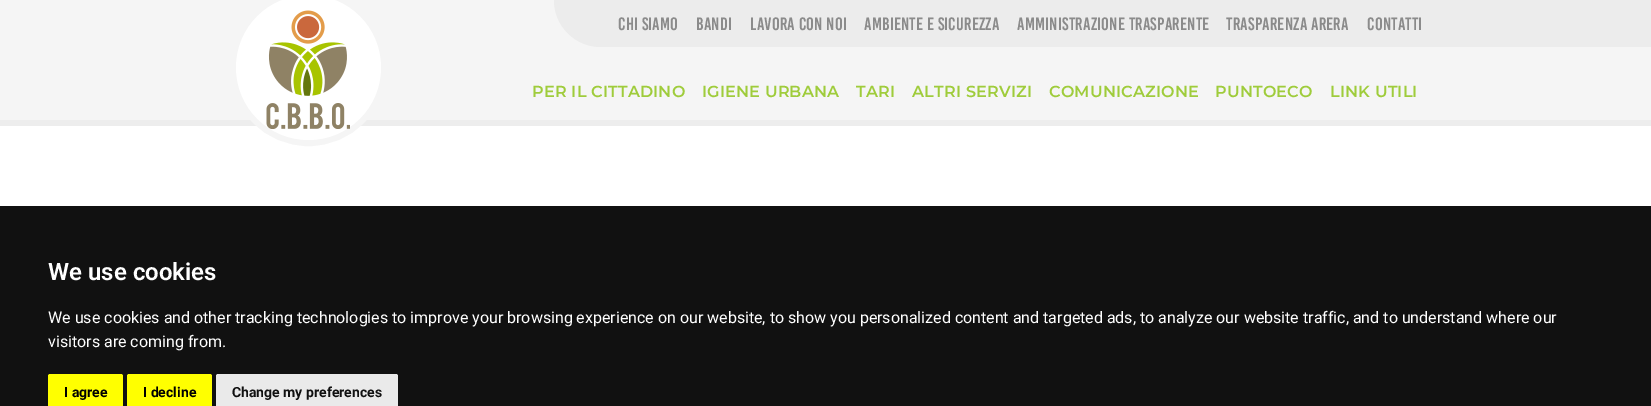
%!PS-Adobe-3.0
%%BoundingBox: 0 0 1651 406
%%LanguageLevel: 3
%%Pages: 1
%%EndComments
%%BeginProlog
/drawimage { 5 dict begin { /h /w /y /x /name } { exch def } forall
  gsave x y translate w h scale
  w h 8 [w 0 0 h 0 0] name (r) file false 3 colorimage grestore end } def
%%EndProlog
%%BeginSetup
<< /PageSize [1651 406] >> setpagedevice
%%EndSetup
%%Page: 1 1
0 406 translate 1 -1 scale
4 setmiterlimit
1 setgray
0 0 1651 406 rectfill
0.929 setgray
0 120 1651 6 rectfill
0.961 setgray
0 0 1651 120 rectfill
6 setlinewidth
newpath 308.5 67.5 75.5 0 360 arc closepath stroke
1 setgray
newpath 308.5 67.5 72.5 0 360 arc closepath fill
(images/1.raw) 266 10 84 119 drawimage
0.925 setgray
644 0 1007 47 rectfill
newpath 554 0 moveto 644 0 lineto 644 47 lineto 601 47 lineto 575 47 554 26 554 0 curveto closepath fill
0.067 setgray
0 206 1651 200 rectfill
1 1 0 setrgbcolor
newpath 50 374 moveto 121 374 lineto 122 374 123 375 123 376 curveto 123 406 lineto 48 406 lineto 48 376 lineto 48 375 49 374 50 374 curveto closepath fill
newpath 129 374 moveto 210 374 lineto 211 374 212 375 212 376 curveto 212 406 lineto 127 406 lineto 127 376 lineto 127 375 128 374 129 374 curveto closepath fill
0.918 setgray
newpath 218 374 moveto 396 374 lineto 397 374 398 375 398 376 curveto 398 406 lineto 216 406 lineto 216 376 lineto 216 375 217 374 218 374 curveto closepath fill
/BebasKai-Regular [18 0 0 -18 0 0] selectfont
0.545 setgray
618 30 moveto 0.2 0 (CHI SIAMO) ashow
696 30 moveto 0.2 0 (BANDI) ashow
750 30 moveto 0.2 0 (LAVORA CON NOI) ashow
864 30 moveto 0.2 0 (AMBIENTE E SICUREZZA) ashow
1017 30 moveto 0.2 0 (AMMINISTRAZIONE TRASPARENTE) ashow
1226 30 moveto 0.2 0 (TRASPARENZA ARERA) ashow
1367 30 moveto 0.2 0 (CONTATTI) ashow
/Montserrat-SemiBold [16 0 0 -16 0 0] selectfont
0.624 0.8 0.231 setrgbcolor
532 97 moveto 0.2 0 (PER IL CITTADINO) ashow
702 97 moveto 0.2 0 (IGIENE URBANA) ashow
856 97 moveto 0.2 0 (TARI) ashow
912 97 moveto 0.2 0 (ALTRI SERVIZI) ashow
1049 97 moveto 0.2 0 (COMUNICAZIONE) ashow
1215 97 moveto 0.2 0 (PUNTOECO) ashow
1330 97 moveto 0.2 0 (LINK UTILI) ashow
/Roboto-SemiBold [24 0 0 -24 0 0] selectfont
1 setgray
48 280 moveto (We use cookies) show
/Roboto-Regular [16 0 0 -16 0 0] selectfont
48 323 moveto (We use cookies and other tracking technologies to improve your browsing experience on our website, to show you personalized content and targeted ads, to analyze our website traffic, and to understand where our) show
48 347 moveto (visitors are coming from.) show
/Roboto-Bold [14 0 0 -14 0 0] selectfont
0 setgray
64 397 moveto (I agree) show
143 397 moveto (I decline) show
0.067 setgray
232 397 moveto (Change my preferences) show
showpage
%%EOF
